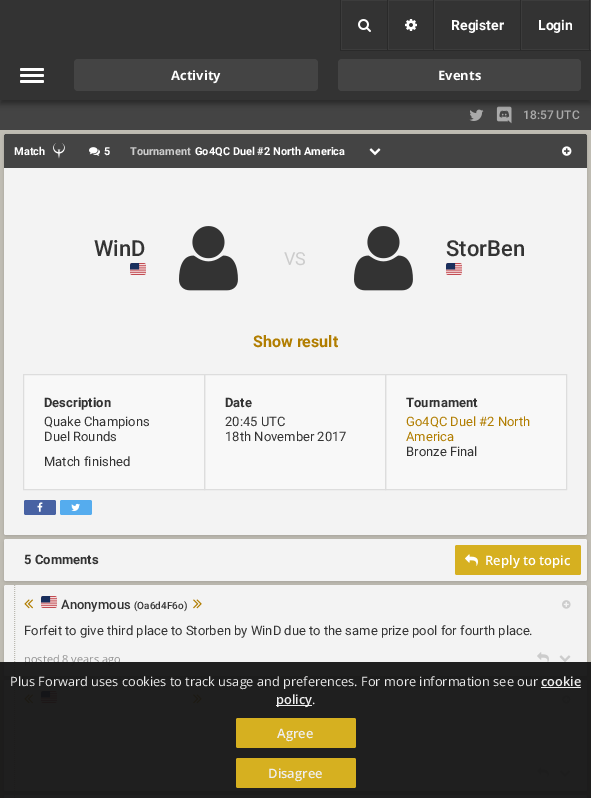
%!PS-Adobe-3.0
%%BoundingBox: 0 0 591 798
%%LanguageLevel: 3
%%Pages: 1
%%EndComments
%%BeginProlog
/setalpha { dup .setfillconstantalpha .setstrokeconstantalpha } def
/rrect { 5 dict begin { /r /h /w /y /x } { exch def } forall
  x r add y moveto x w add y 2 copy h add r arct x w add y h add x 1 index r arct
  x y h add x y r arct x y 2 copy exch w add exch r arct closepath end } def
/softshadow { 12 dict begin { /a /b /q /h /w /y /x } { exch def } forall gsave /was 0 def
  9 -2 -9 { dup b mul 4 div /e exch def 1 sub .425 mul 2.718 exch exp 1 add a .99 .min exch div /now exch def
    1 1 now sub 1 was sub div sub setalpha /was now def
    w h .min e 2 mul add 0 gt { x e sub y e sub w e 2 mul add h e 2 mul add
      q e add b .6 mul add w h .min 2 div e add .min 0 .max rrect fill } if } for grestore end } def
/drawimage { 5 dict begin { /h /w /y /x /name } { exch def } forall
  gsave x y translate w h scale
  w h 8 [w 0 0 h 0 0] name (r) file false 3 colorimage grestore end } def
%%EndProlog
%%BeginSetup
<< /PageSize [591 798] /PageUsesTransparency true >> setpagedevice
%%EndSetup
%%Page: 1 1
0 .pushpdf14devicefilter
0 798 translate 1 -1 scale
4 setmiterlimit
0.753 0.741 0.706 setrgbcolor
0 0 591 798 rectfill
0.267 setgray
0 100 591 30 rectfill
(images/3.raw) 469 109 15 12 drawimage
(images/4.raw) 496 106 16 18 drawimage
0 setgray
0 4 591 100 0 3 0.4 softshadow
0.2 setgray
0 0 591 100 rectfill
gsave
340 0 251 50 rectclip
0.235 setgray
newpath 241 -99 moveto 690 -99 lineto 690 149 lineto 241 149 lineto closepath 342 1 moveto 591 1 lineto 591 49 lineto 342 49 lineto closepath eofill
grestore
0.165 setgray
340 50 251 1 rectfill
340 0 1 50 rectfill
387 0 1 50 rectfill
(images/1.raw) 358 19 13 13 drawimage
433 0 1 50 rectfill
0.235 setgray
388 0 1 50 rectfill
(images/2.raw) 405 19 12 12 drawimage
0.165 setgray
520 0 1 50 rectfill
0.235 setgray
434 0 1 50 rectfill
0.165 setgray
589 0 1 50 rectfill
0.235 setgray
521 0 1 50 rectfill
0.259 setgray
590 0 1 50 rectfill
1 setgray
20 74 24 3 1.5 rrect fill
20 68 24 3 1.5 rrect fill
20 80 24 3 1.5 rrect fill
0.267 setgray
74 59 244 32 4 rrect fill
338 59 243 32 4 rrect fill
0 setgray
4 135 583 401 2 1.5 0.15 softshadow
0.953 setgray
4 134 583 401 2 rrect fill
0.267 setgray
newpath 6 134 moveto 585 134 lineto 586 134 587 135 587 136 curveto 587 168 lineto 4 168 lineto 4 136 lineto 4 135 5 134 6 134 curveto closepath fill
(images/5.raw) 53 143 12 16 drawimage
(images/6.raw) 89 147 11 9 drawimage
(images/7.raw) 369 148 12 8 drawimage
(images/8.raw) 562 146 10 10 drawimage
(images/9.raw) 130 263 16 12 drawimage
(images/10.raw) 179 226 59 65 drawimage
(images/10.raw) 354 226 59 65 drawimage
(images/9.raw) 446 263 16 12 drawimage
0.973 setgray
24 375 542 114 rectfill
0.867 setgray
23.5 374.5 181 115 rectstroke
204.5 374.5 181 115 rectstroke
385.5 374.5 181 115 rectstroke
0.282 0.384 0.639 setrgbcolor
24 500 32 15 2 rrect fill
(images/11.raw) 37 502 6 10 drawimage
0.333 0.675 0.933 setrgbcolor
60 500 32 15 2 rrect fill
(images/12.raw) 71 503 9 8 drawimage
0 setgray
4 540 583 42 2 1.5 0.15 softshadow
0.953 setgray
4 539 583 42 2 rrect fill
0.839 0.69 0.125 setrgbcolor
455 545 126 30 2 rrect fill
(images/13.raw) 465 554 13 12 drawimage
0 setgray
4 586 583 91 2 1.5 0.15 softshadow
0.953 setgray
4 585 583 91 2 rrect fill
0.733 0.725 0.694 setrgbcolor
[1 1] 0 setdash
newpath 14.5 585 moveto 14.5 676 lineto stroke
(images/14.raw) 24 599 9 10 drawimage
(images/9.raw) 41 596 16 12 drawimage
(images/15.raw) 193 599 9 10 drawimage
(images/16.raw) 537 652 12 11 drawimage
(images/17.raw) 559 655 12 7 drawimage
(images/18.raw) 562 600 9 9 drawimage
0 setgray
4 681 583 111 2 1.5 0.15 softshadow
0.953 setgray
4 680 583 111 2 rrect fill
0.733 0.725 0.694 setrgbcolor
newpath 14.5 680 moveto 14.5 791 lineto stroke
(images/14.raw) 24 694 9 10 drawimage
(images/9.raw) 41 691 16 12 drawimage
(images/15.raw) 193 694 9 10 drawimage
(images/16.raw) 537 767 12 11 drawimage
(images/17.raw) 559 770 12 7 drawimage
(images/18.raw) 562 695 9 9 drawimage
0 setgray
4 796 583 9 2 1.5 0.15 softshadow
0.953 setgray
4 795 583 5 2 rrect fill
0.733 0.725 0.694 setrgbcolor
newpath 14.5 795 moveto 14.5 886 lineto stroke
/Roboto-Bold [14 0 0 -14 0 0] selectfont
1 setgray
451 30 moveto (Register) show
538 30 moveto (Login) show
/OpenSans-Bold [13 0 0 -13 0 0] selectfont
171 80 moveto (Activity) show
438 80 moveto (Events) show
/Roboto-Medium [12 0 0 -12 0 0] selectfont
0.667 setgray
523 119 moveto (18:57 UTC) show
/Roboto-Bold [11 0 0 -11 0 0] selectfont
1 setgray
14 155 moveto (Match) show
104 155 moveto (5) show
0.8 setgray
130 155 moveto (Tournament) show
1 setgray
195 155 moveto (Go4QC Duel #2 North America) show
/Roboto-Medium [22 0 0 -22 0 0] selectfont
0.2 setgray
94 256 moveto (WinD) show
446 256 moveto (StorBen) show
/Roboto-Regular [18 0 0 -18 0 0] selectfont
0.8 setgray
284 265 moveto (VS) show
/Roboto-Bold [16 0 0 -16 0 0] selectfont
0.694 0.49 0 setrgbcolor
253 347 moveto (Show result) show
/Roboto-Bold [13 0 0 -13 0 0] selectfont
0.2 setgray
44 407 moveto (Description) show
/Roboto-Regular [13 0 0 -13 0 0] selectfont
44 426 moveto (Quake Champions) show
44 441 moveto (Duel Rounds) show
44 466 moveto (Match finished) show
/Roboto-Bold [13 0 0 -13 0 0] selectfont
225 407 moveto (Date) show
/Roboto-Regular [13 0 0 -13 0 0] selectfont
225 426 moveto (20:45 UTC) show
225 441 moveto (18th November 2017) show
/Roboto-Bold [13 0 0 -13 0 0] selectfont
406 407 moveto (Tournament) show
/Roboto-Regular [13 0 0 -13 0 0] selectfont
0.694 0.49 0 setrgbcolor
406 426 moveto (Go4QC Duel #2 North) show
406 441 moveto (America) show
0.2 setgray
406 456 moveto (Bronze Final) show
/Roboto-Bold [13 0 0 -13 0 0] selectfont
24 564 moveto (5 Comments) show
/OpenSans-SemiBold [13 0 0 -13 0 0] selectfont
1 setgray
485 565 moveto (Reply to topic) show
/Roboto-Medium [13 0 0 -13 0 0] selectfont
0.2 setgray
61 609 moveto (Anonymous) show
/Roboto-Medium [10 0 0 -10 0 0] selectfont
134 609 moveto (\(Oa6d4F6o\)) show
/Roboto-Regular [13 0 0 -13 0 0] selectfont
24 635 moveto (Forfeit to give third place to Storben by WinD due to the same prize pool for fourth place.) show
/OpenSans-Regular [11 0 0 -11 0 0] selectfont
0.576 setgray
24 663 moveto (posted 8 years ago) show
0.95 setalpha
0.078 setgray
0 662 591 136 rectfill
/OpenSans-Regular [12.8 0 0 -12.8 0 0] selectfont
1 setalpha
0.933 setgray
10 686 moveto (Plus Forward uses cookies to track usage and preferences. For more information see our) show
/OpenSans-SemiBold [12.8 0 0 -12.8 0 0] selectfont
541 686 moveto (cookie) show
541 687 40 1 rectfill
276 705 36 1 rectfill
276 704 moveto (policy) show
/OpenSans-Regular [12.8 0 0 -12.8 0 0] selectfont
312 704 moveto (.) show
0.839 0.69 0.125 setrgbcolor
236 718 120 30 2 rrect fill
/OpenSans-SemiBold [13 0 0 -13 0 0] selectfont
0.933 setgray
277 738 moveto (Agree) show
0.839 0.69 0.125 setrgbcolor
236 758 120 30 2 rrect fill
0.933 setgray
268 778 moveto (Disagree) show
.poppdf14devicefilter showpage
%%EOF
